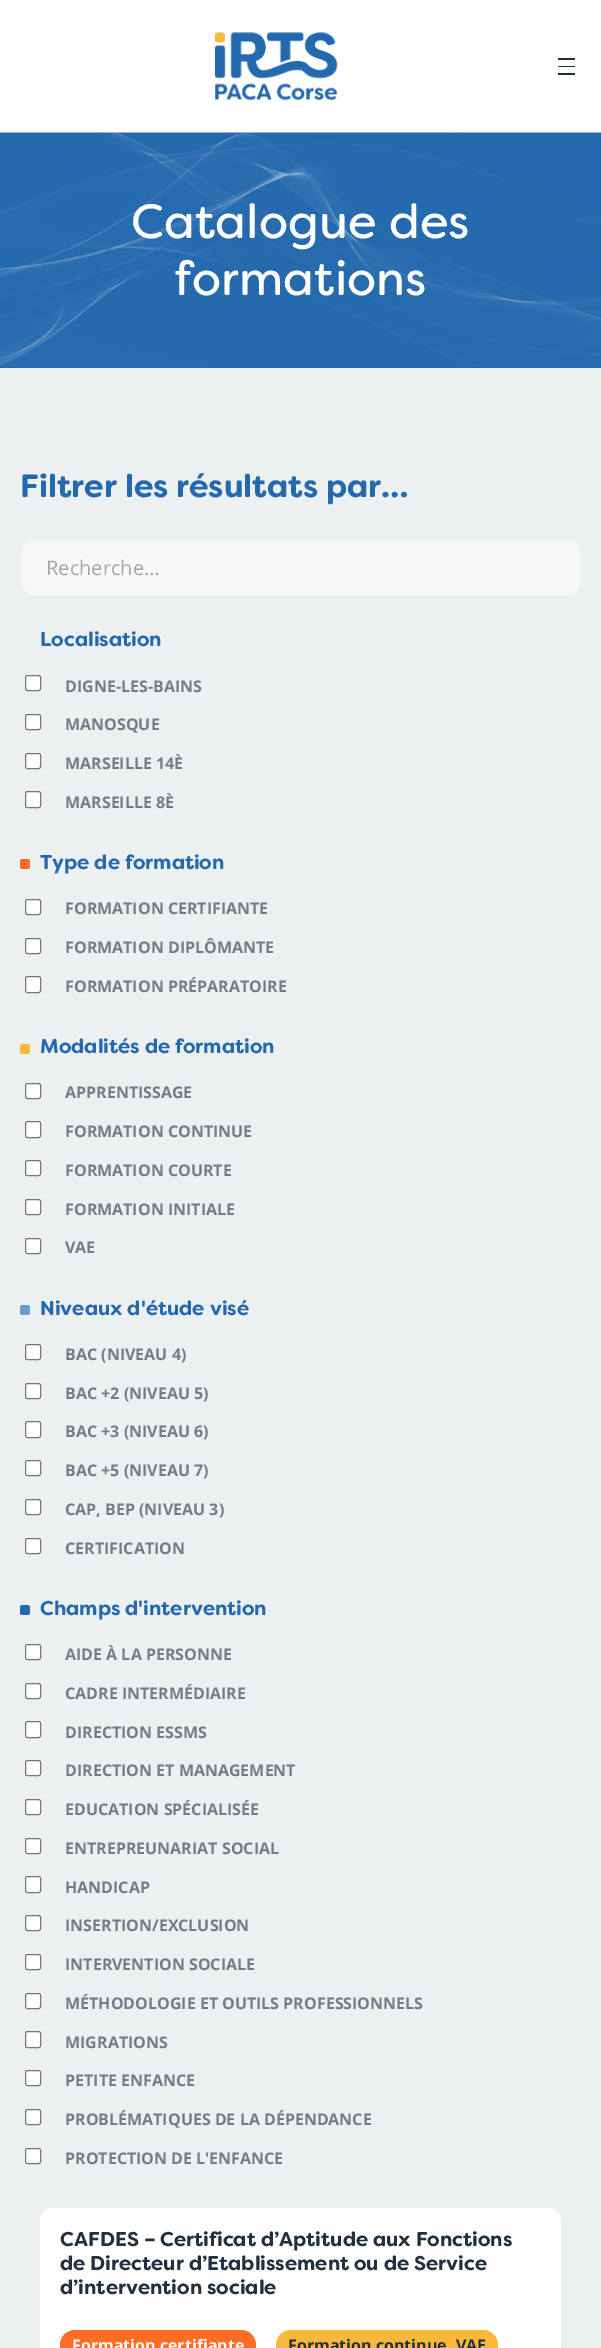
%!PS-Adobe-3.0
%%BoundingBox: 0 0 601 2348
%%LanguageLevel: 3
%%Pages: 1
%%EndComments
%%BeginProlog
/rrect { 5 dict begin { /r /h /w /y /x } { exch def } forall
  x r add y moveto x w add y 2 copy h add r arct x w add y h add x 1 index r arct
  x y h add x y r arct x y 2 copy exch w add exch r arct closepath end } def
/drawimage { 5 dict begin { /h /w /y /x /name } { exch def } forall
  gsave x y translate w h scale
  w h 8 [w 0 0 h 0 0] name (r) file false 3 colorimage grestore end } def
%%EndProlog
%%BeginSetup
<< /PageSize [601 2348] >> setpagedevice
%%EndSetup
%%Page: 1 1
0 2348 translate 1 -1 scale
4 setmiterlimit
0.925 0.941 0.945 setrgbcolor
0 0 601 2348 rectfill
1 setgray
0 0 601 133 rectfill
(images/1.raw) 214 32 124 69 drawimage
0.133 0.184 0.243 setrgbcolor
558 58 17 2 rectfill
558 66 17 1 rectfill
558 73 17 2 rectfill
0.141 0.412 0.678 setrgbcolor
0 367 601 1 rectfill
(images/2.raw) 0 132 601 236 drawimage
0.969 0.976 0.976 setrgbcolor
20.5 539.5 560 56 12.5 rrect gsave fill grestore
0.925 0.941 0.945 setrgbcolor
stroke
1 setgray
25.5 675.5 15 15 2 rrect gsave fill grestore
0.463 setgray
stroke
1 setgray
25.5 714.5 15 15 2 rrect gsave fill grestore
0.463 setgray
stroke
1 setgray
25.5 753.5 15 15 2 rrect gsave fill grestore
0.463 setgray
stroke
1 setgray
25.5 791.5 15 16 2 rrect gsave fill grestore
0.463 setgray
stroke
1 0.424 0.145 setrgbcolor
20 859 10 10 2.5 rrect fill
1 setgray
25.5 899.5 15 15 2 rrect gsave fill grestore
0.463 setgray
stroke
1 setgray
25.5 938.5 15 15 2 rrect gsave fill grestore
0.463 setgray
stroke
1 setgray
25.5 976.5 15 16 2 rrect gsave fill grestore
0.463 setgray
stroke
0.973 0.722 0.227 setrgbcolor
20 1044 10 10 2.5 rrect fill
1 setgray
25.5 1083.5 15 15 2 rrect gsave fill grestore
0.463 setgray
stroke
1 setgray
25.5 1121.5 15 16 2 rrect gsave fill grestore
0.463 setgray
stroke
1 setgray
25.5 1160.5 15 15 2 rrect gsave fill grestore
0.463 setgray
stroke
1 setgray
25.5 1199.5 15 15 2 rrect gsave fill grestore
0.463 setgray
stroke
1 setgray
25.5 1238.5 15 15 2 rrect gsave fill grestore
0.463 setgray
stroke
0.412 0.612 0.808 setrgbcolor
20 1305 10 10 2.5 rrect fill
1 setgray
25.5 1344.5 15 15 2 rrect gsave fill grestore
0.463 setgray
stroke
1 setgray
25.5 1383.5 15 15 2 rrect gsave fill grestore
0.463 setgray
stroke
1 setgray
25.5 1421.5 15 16 2 rrect gsave fill grestore
0.463 setgray
stroke
1 setgray
25.5 1460.5 15 15 2 rrect gsave fill grestore
0.463 setgray
stroke
1 setgray
25.5 1499.5 15 15 2 rrect gsave fill grestore
0.463 setgray
stroke
1 setgray
25.5 1538.5 15 15 2 rrect gsave fill grestore
0.463 setgray
stroke
0.141 0.412 0.678 setrgbcolor
20 1605 10 10 2.5 rrect fill
1 setgray
25.5 1644.5 15 15 2 rrect gsave fill grestore
0.463 setgray
stroke
1 setgray
25.5 1683.5 15 15 2 rrect gsave fill grestore
0.463 setgray
stroke
1 setgray
25.5 1721.5 15 16 2 rrect gsave fill grestore
0.463 setgray
stroke
1 setgray
25.5 1760.5 15 15 2 rrect gsave fill grestore
0.463 setgray
stroke
1 setgray
25.5 1799.5 15 15 2 rrect gsave fill grestore
0.463 setgray
stroke
1 setgray
25.5 1838.5 15 15 2 rrect gsave fill grestore
0.463 setgray
stroke
1 setgray
25.5 1876.5 15 16 2 rrect gsave fill grestore
0.463 setgray
stroke
1 setgray
25.5 1915.5 15 15 2 rrect gsave fill grestore
0.463 setgray
stroke
1 setgray
25.5 1954.5 15 15 2 rrect gsave fill grestore
0.463 setgray
stroke
1 setgray
25.5 1993.5 15 15 2 rrect gsave fill grestore
0.463 setgray
stroke
1 setgray
25.5 2031.5 15 16 2 rrect gsave fill grestore
0.463 setgray
stroke
1 setgray
25.5 2070.5 15 15 2 rrect gsave fill grestore
0.463 setgray
stroke
1 setgray
25.5 2109.5 15 15 2 rrect gsave fill grestore
0.463 setgray
stroke
1 setgray
25.5 2148.5 15 15 2 rrect gsave fill grestore
0.463 setgray
stroke
1 setgray
40 2208 521 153 13 rrect fill
1 0.424 0.145 setrgbcolor
60 2330 196 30 15 rrect fill
0.973 0.722 0.227 setrgbcolor
276 2330 222 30 15 rrect fill
/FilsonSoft-Regular [48 0 0 -48 0 0] selectfont
1 setgray
131 238 moveto (Catalogue des) show
174 295 moveto (formations) show
/FilsonSoft-Bold [32 0 0 -32 0 0] selectfont
0.141 0.412 0.678 setrgbcolor
20 497 moveto (Filtrer les résultats par…) show
/OpenSans-Regular [20 0 0 -20 0 0] selectfont
0.647 0.651 0.655 setrgbcolor
46 575 moveto (Recherche…) show
/FilsonSoft-Bold [20 0 0 -20 0 0] selectfont
0.141 0.412 0.678 setrgbcolor
40 646 moveto (Localisation) show
/OpenSans-Bold [16 0 0 -16 0 0] selectfont
0.451 0.486 0.525 setrgbcolor
65 692 moveto (DIGNE-LES-BAINS) show
65 730 moveto (MANOSQUE) show
65 769 moveto (MARSEILLE 14È) show
65 808 moveto (MARSEILLE 8È) show
/FilsonSoft-Bold [20 0 0 -20 0 0] selectfont
0.141 0.412 0.678 setrgbcolor
40 869 moveto (Type de formation) show
/OpenSans-Bold [16 0 0 -16 0 0] selectfont
0.451 0.486 0.525 setrgbcolor
65 914 moveto (FORMATION CERTIFIANTE) show
65 953 moveto (FORMATION DIPLÔMANTE) show
65 992 moveto (FORMATION PRÉPARATOIRE) show
/FilsonSoft-Bold [20 0 0 -20 0 0] selectfont
0.141 0.412 0.678 setrgbcolor
40 1053 moveto (Modalités de formation) show
/OpenSans-Bold [16 0 0 -16 0 0] selectfont
0.451 0.486 0.525 setrgbcolor
65 1098 moveto (APPRENTISSAGE) show
65 1137 moveto (FORMATION CONTINUE) show
65 1176 moveto (FORMATION COURTE) show
65 1215 moveto (FORMATION INITIALE) show
65 1253 moveto (VAE) show
/FilsonSoft-Bold [20 0 0 -20 0 0] selectfont
0.141 0.412 0.678 setrgbcolor
40 1315 moveto (Niveaux d'étude visé) show
/OpenSans-Bold [16 0 0 -16 0 0] selectfont
0.451 0.486 0.525 setrgbcolor
65 1360 moveto (BAC \(NIVEAU 4\)) show
65 1399 moveto (BAC +2 \(NIVEAU 5\)) show
65 1437 moveto (BAC +3 \(NIVEAU 6\)) show
65 1476 moveto (BAC +5 \(NIVEAU 7\)) show
65 1515 moveto (CAP, BEP \(NIVEAU 3\)) show
65 1554 moveto (CERTIFICATION) show
/FilsonSoft-Bold [20 0 0 -20 0 0] selectfont
0.141 0.412 0.678 setrgbcolor
40 1615 moveto (Champs d'intervention) show
/OpenSans-Bold [16 0 0 -16 0 0] selectfont
0.451 0.486 0.525 setrgbcolor
65 1660 moveto (AIDE À LA PERSONNE) show
65 1699 moveto (CADRE INTERMÉDIAIRE) show
65 1738 moveto (DIRECTION ESSMS) show
65 1776 moveto (DIRECTION ET MANAGEMENT) show
65 1815 moveto (EDUCATION SPÉCIALISÉE) show
65 1854 moveto (ENTREPREUNARIAT SOCIAL) show
65 1893 moveto (HANDICAP) show
65 1931 moveto (INSERTION/EXCLUSION) show
65 1970 moveto (INTERVENTION SOCIALE) show
65 2009 moveto (MÉTHODOLOGIE ET OUTILS PROFESSIONNELS) show
65 2048 moveto (MIGRATIONS) show
65 2086 moveto (PETITE ENFANCE) show
65 2125 moveto (PROBLÉMATIQUES DE LA DÉPENDANCE) show
65 2164 moveto (PROTECTION DE L'ENFANCE) show
/FilsonSoft-Bold [20 0 0 -20 0 0] selectfont
0.133 0.184 0.243 setrgbcolor
60 2246 moveto (CAFDES – Certificat d’Aptitude aux Fonctions) show
60 2270 moveto (de Directeur d’Etablissement ou de Service) show
60 2294 moveto (d’intervention sociale) show
/OpenSans-Bold [16 0 0 -16 0 0] selectfont
1 setgray
72 2351 moveto (Formation certifiante) show
0.133 0.184 0.243 setrgbcolor
288 2351 moveto (Formation continue) show
456 2351 moveto (VAE) show
showpage
%%EOF
